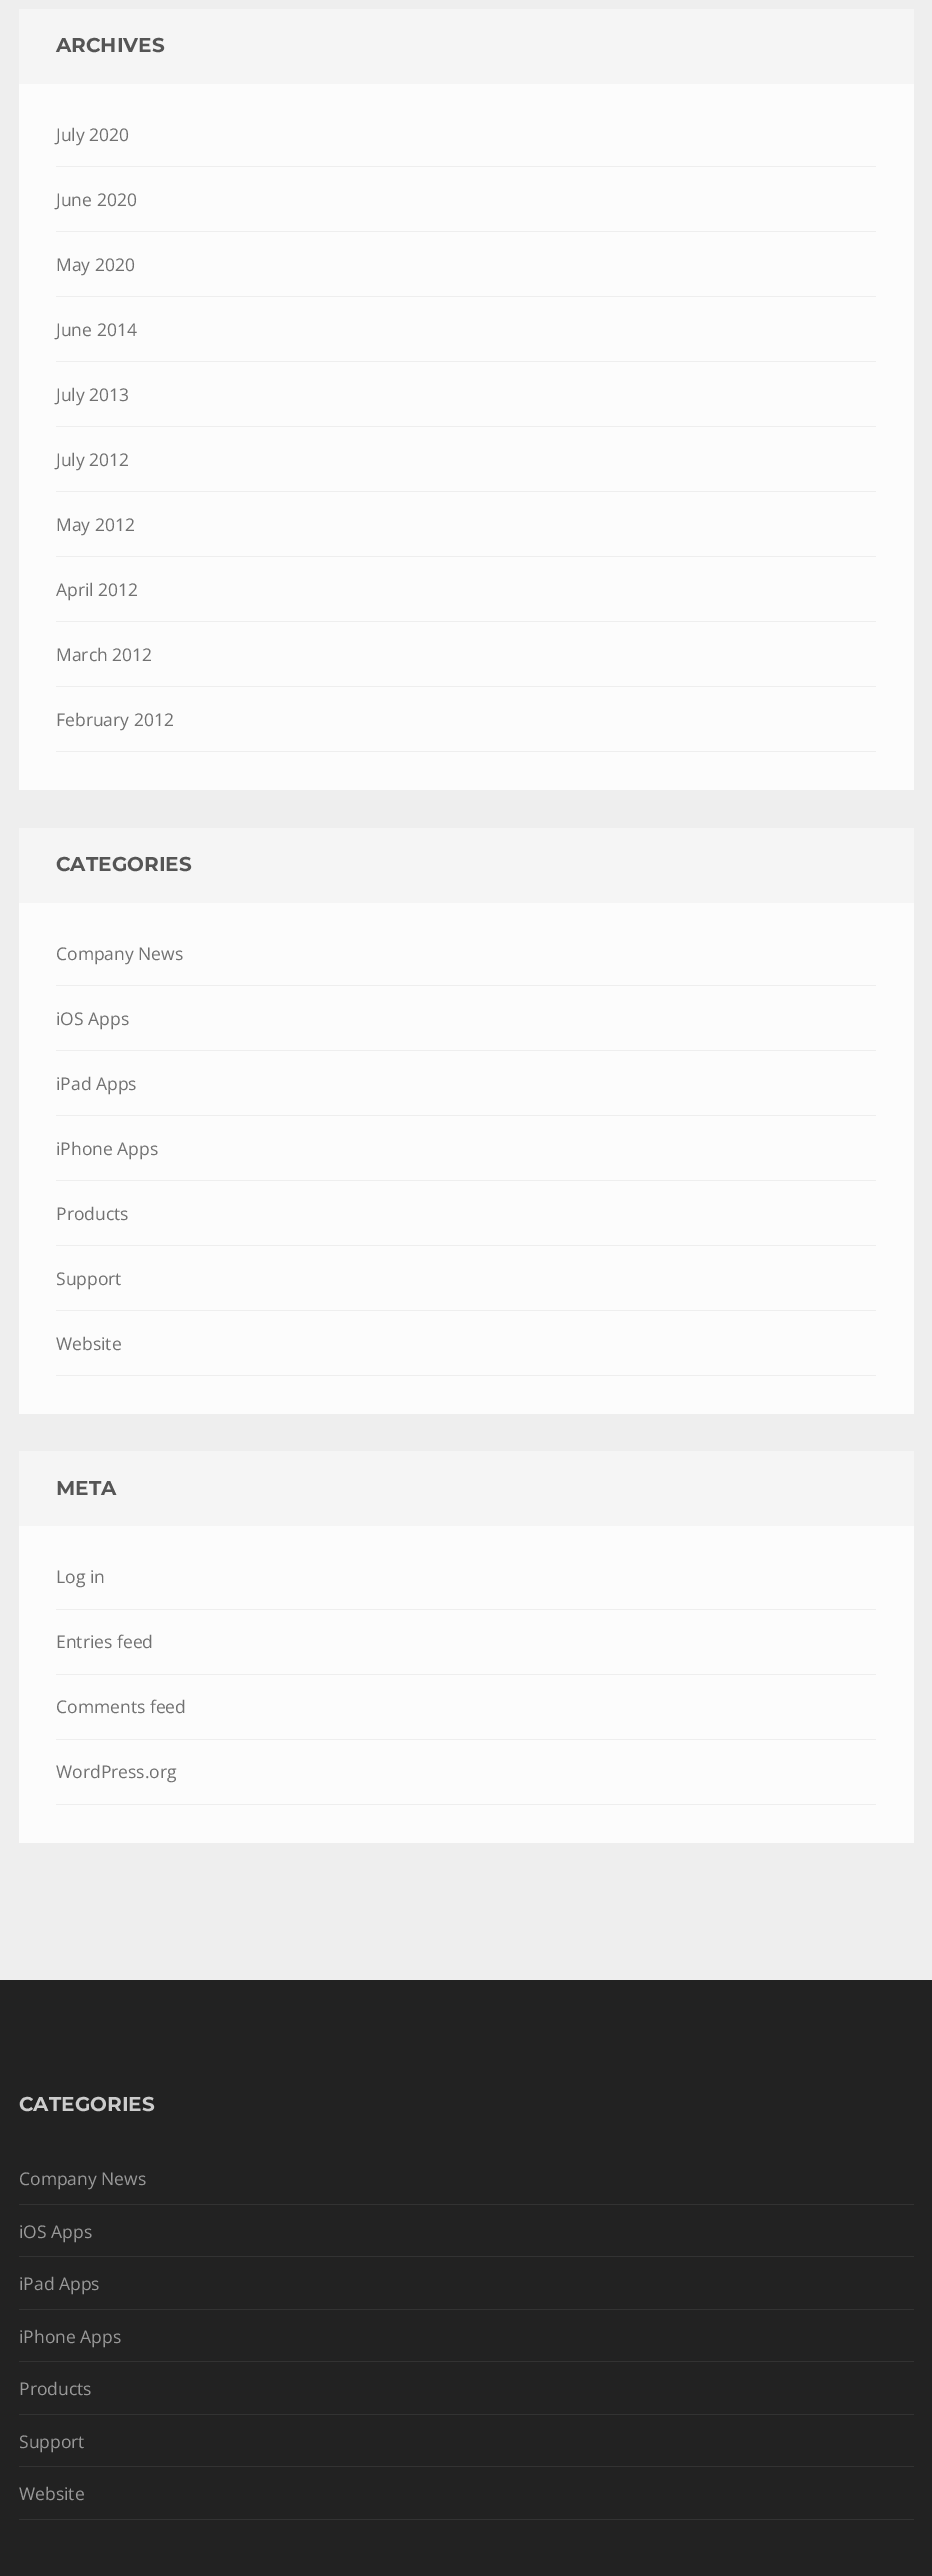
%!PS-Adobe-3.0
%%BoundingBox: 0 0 932 2576
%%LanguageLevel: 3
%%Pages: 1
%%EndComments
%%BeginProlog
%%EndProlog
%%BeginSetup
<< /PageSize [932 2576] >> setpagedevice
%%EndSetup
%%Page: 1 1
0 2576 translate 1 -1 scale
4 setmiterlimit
0.933 setgray
0 0 932 2576 rectfill
0.988 setgray
19 84 895 706 rectfill
0.961 setgray
19 9 895 75 rectfill
0.933 setgray
56 166 820 1 rectfill
56 231 820 1 rectfill
56 296 820 1 rectfill
56 361 820 1 rectfill
56 426 820 1 rectfill
56 491 820 1 rectfill
56 556 820 1 rectfill
56 621 820 1 rectfill
56 686 820 1 rectfill
56 751 820 1 rectfill
0.988 setgray
19 903 895 511 rectfill
0.961 setgray
19 828 895 75 rectfill
0.933 setgray
56 985 820 1 rectfill
56 1050 820 1 rectfill
56 1115 820 1 rectfill
56 1180 820 1 rectfill
56 1245 820 1 rectfill
56 1310 820 1 rectfill
56 1375 820 1 rectfill
0.988 setgray
19 1526 895 317 rectfill
0.961 setgray
19 1451 895 75 rectfill
0.933 setgray
56 1609 820 1 rectfill
56 1674 820 1 rectfill
56 1739 820 1 rectfill
56 1804 820 1 rectfill
0.133 setgray
0 1980 932 596 rectfill
0.2 setgray
19 2204 895 1 rectfill
19 2256 895 1 rectfill
19 2309 895 1 rectfill
19 2361 895 1 rectfill
19 2414 895 1 rectfill
19 2466 895 1 rectfill
19 2519 895 1 rectfill
/Montserrat-Bold [20 0 0 -20 0 0] selectfont
0.333 setgray
56 52 moveto (ARCHIVES) show
/OpenSans-Regular [17.5 0 0 -17.5 0 0] selectfont
0.443 setgray
56 141 moveto (July 2020) show
56 206 moveto (June 2020) show
56 271 moveto (May 2020) show
56 336 moveto (June 2014) show
56 401 moveto (July 2013) show
56 466 moveto (July 2012) show
56 531 moveto (May 2012) show
56 596 moveto (April 2012) show
56 661 moveto (March 2012) show
56 726 moveto (February 2012) show
/Montserrat-Bold [20 0 0 -20 0 0] selectfont
0.333 setgray
56 871 moveto (CATEGORIES) show
/OpenSans-Regular [17.5 0 0 -17.5 0 0] selectfont
0.443 setgray
56 960 moveto (Company News) show
56 1025 moveto (iOS Apps) show
56 1090 moveto (iPad Apps) show
56 1155 moveto (iPhone Apps) show
56 1220 moveto (Products) show
56 1285 moveto (Support) show
56 1350 moveto (Website) show
/Montserrat-Bold [20 0 0 -20 0 0] selectfont
0.333 setgray
56 1495 moveto (META) show
/OpenSans-Regular [17.5 0 0 -17.5 0 0] selectfont
0.443 setgray
56 1583 moveto (Log in) show
56 1648 moveto (Entries feed) show
56 1713 moveto (Comments feed) show
56 1778 moveto (WordPress.org) show
/Montserrat-Bold [20 0 0 -20 0 0] selectfont
0.8 setgray
19 2111 moveto (CATEGORIES) show
/OpenSans-Regular [17.5 0 0 -17.5 0 0] selectfont
0.6 setgray
19 2185 moveto (Company News) show
19 2238 moveto (iOS Apps) show
19 2290 moveto (iPad Apps) show
19 2343 moveto (iPhone Apps) show
19 2395 moveto (Products) show
19 2448 moveto (Support) show
19 2500 moveto (Website) show
showpage
%%EOF
